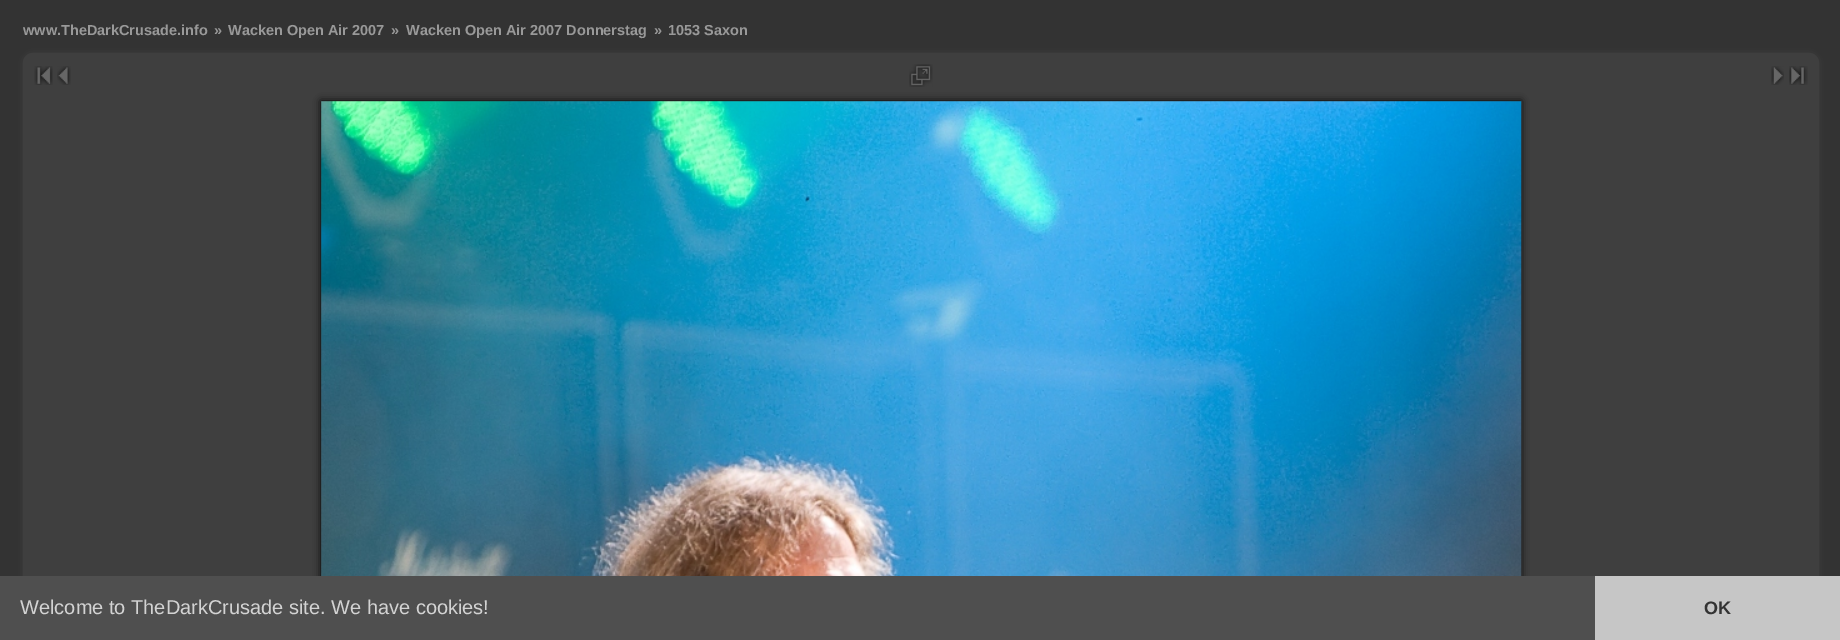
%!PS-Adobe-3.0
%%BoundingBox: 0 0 1840 640
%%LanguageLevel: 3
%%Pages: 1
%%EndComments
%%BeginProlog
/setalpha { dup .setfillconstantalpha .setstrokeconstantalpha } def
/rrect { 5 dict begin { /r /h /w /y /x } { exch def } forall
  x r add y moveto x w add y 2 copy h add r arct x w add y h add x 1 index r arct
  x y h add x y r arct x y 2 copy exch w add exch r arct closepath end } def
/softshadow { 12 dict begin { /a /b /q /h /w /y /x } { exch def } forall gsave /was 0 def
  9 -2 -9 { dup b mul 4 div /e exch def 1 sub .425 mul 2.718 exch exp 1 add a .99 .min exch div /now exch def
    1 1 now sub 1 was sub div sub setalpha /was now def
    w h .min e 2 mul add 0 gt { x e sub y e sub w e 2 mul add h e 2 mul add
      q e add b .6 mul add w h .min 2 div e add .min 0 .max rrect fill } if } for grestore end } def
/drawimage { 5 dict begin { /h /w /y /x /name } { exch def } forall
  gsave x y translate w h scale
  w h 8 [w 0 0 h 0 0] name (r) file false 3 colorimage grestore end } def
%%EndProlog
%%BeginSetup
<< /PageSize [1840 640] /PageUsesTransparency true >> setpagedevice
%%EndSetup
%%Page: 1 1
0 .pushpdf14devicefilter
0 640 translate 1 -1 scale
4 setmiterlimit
0.2 setgray
0 0 1840 640 rectfill
0.247 setgray
23 53 1796 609 10 4 1 softshadow
23 53 1796 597 10 rrect fill
(images/1.raw) 34 66 19 19 drawimage
(images/2.raw) 57 66 14 19 drawimage
(images/3.raw) 909 64 24 23 drawimage
(images/4.raw) 1771 66 13 19 drawimage
(images/5.raw) 1789 66 19 19 drawimage
0 setgray
321 101 1200 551 0 4 1 softshadow
0.2 setgray
321 101 1200 475 rectfill
(images/6.raw) 321 101 1201 475 drawimage
0.31 setgray
0 576 1595 64 rectfill
0.776 setgray
1595 576 245 64 rectfill
/LiberationSans-Bold [14.5 0 0 -14.5 0 0] selectfont
0.6 setgray
23 35 moveto (www.TheDarkCrusade.info) show
214 35 moveto (») show
228 35 moveto (Wacken Open Air 2007) show
391 35 moveto (») show
406 35 moveto (Wacken Open Air 2007 Donnerstag) show
654 35 moveto (») show
668 35 moveto (1053 Saxon) show
/LiberationSans-Regular [20 0 0 -20 0 0] selectfont
0.827 setgray
20 614 moveto (Welcome to TheDarkCrusade site. We have cookies!) show
/LiberationSans-Bold [18 0 0 -18 0 0] selectfont
0.2 setgray
1704 614 moveto (OK) show
.poppdf14devicefilter showpage
%%EOF
